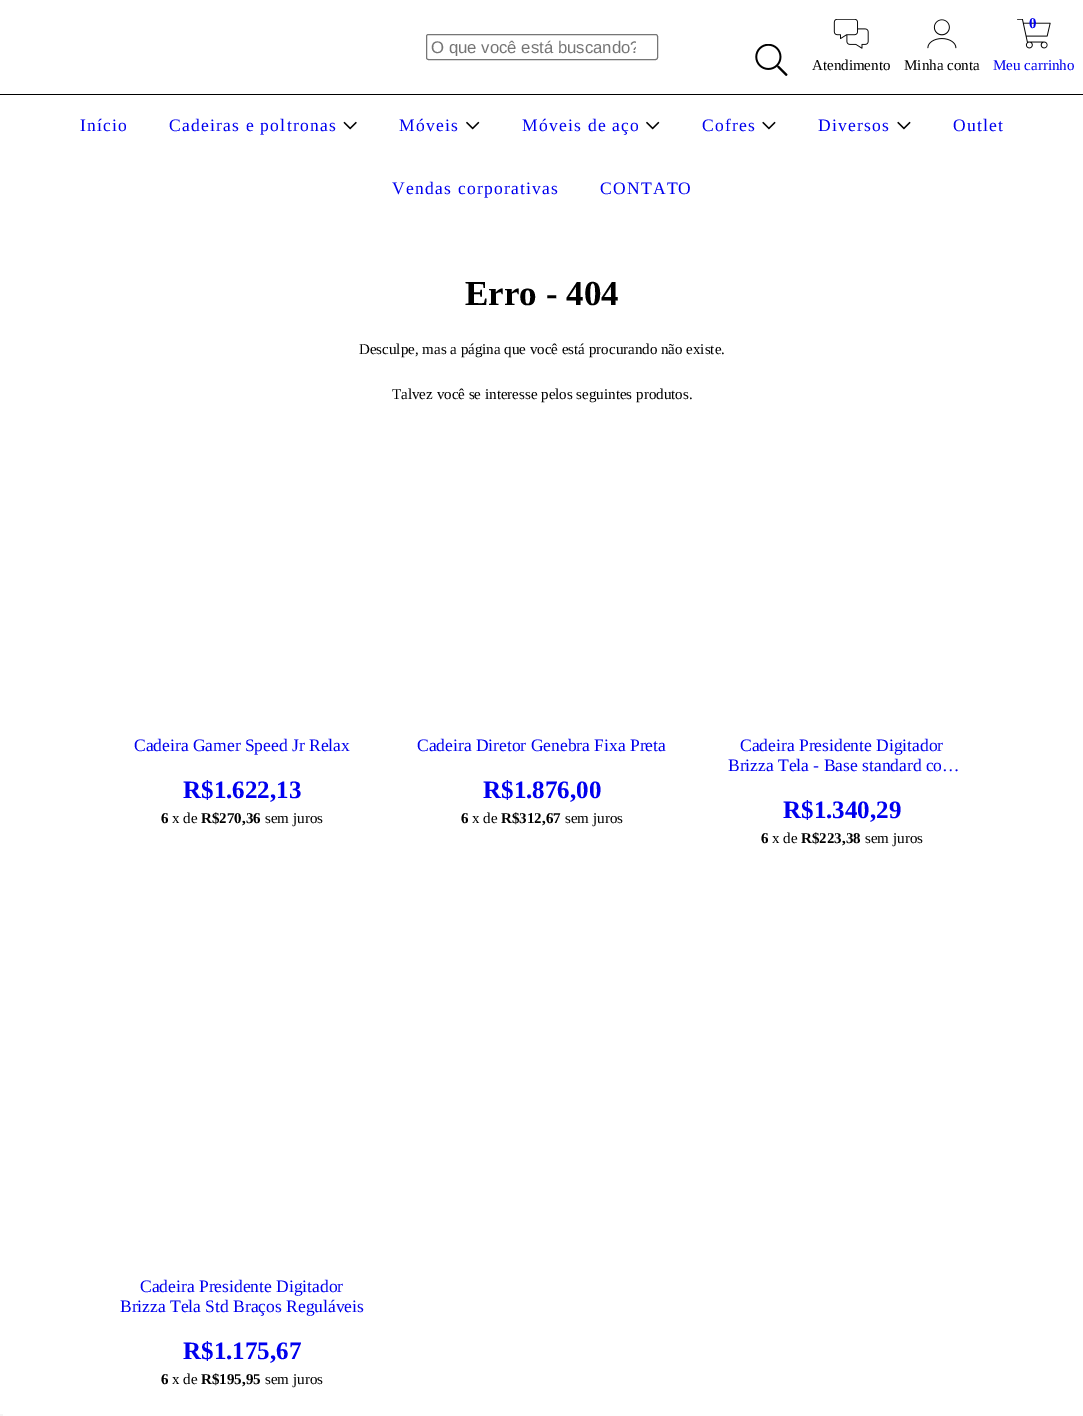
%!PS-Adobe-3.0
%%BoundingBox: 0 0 1083 1416
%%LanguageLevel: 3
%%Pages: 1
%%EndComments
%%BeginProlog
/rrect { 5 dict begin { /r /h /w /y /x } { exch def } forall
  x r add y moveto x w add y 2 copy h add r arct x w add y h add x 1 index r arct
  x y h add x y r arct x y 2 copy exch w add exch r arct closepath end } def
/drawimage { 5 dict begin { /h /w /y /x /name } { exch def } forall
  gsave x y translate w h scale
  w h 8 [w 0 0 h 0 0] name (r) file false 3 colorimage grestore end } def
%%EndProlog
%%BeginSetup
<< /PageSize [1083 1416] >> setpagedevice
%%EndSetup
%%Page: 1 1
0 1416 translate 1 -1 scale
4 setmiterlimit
1 setgray
0 0 1083 1416 rectfill
0.463 setgray
426.5 34.5 231 25 2 rrect stroke
(images/1.raw) 755 44 33 32 drawimage
(images/2.raw) 833 19 36 30 drawimage
(images/3.raw) 927 19 30 30 drawimage
(images/4.raw) 1017 19 34 30 drawimage
0 setgray
0 94 1083 1 rectfill
(images/5.raw) 343 121 14 9 drawimage
(images/6.raw) 466 121 14 9 drawimage
(images/6.raw) 646 121 14 9 drawimage
(images/7.raw) 762 121 14 9 drawimage
(images/7.raw) 897 121 14 9 drawimage
0.961 setgray
0 1414 3 2 rectfill
gsave
431 38 205 18 rectclip
/LiberationSans-Regular [16.75 0 0 -16.75 0 0] selectfont
0.459 setgray
431 53 moveto (O que você está buscando?) show
grestore
/LiberationSerif-Regular [15 0 0 -15 0 0] selectfont
0 setgray
812 70 moveto (Atendimento) show
904 70 moveto (Minha conta) show
/LiberationSerif-Bold [15 0 0 -15 0 0] selectfont
0 0 0.933 setrgbcolor
1029 28 moveto (0) show
/LiberationSerif-Regular [15 0 0 -15 0 0] selectfont
993 70 moveto (Meu carrinho) show
/LiberationSerif-Regular [17.5 0 0 -17.5 0 0] selectfont
80 131 moveto 1.25 0 (Início) ashow
169 131 moveto 1.25 0 (Cadeiras e poltronas) ashow
399 131 moveto 1.25 0 (Móveis) ashow
522 131 moveto 1.25 0 (Móveis de aço) ashow
702 131 moveto 1.25 0 (Cofres) ashow
818 131 moveto 1.25 0 (Diversos) ashow
953 131 moveto 1.25 0 (Outlet) ashow
392 194 moveto 1.25 0 (Vendas corporativas) ashow
600 194 moveto 1.25 0 (CONTATO) ashow
/LiberationSerif-Bold [35 0 0 -35 0 0] selectfont
0 setgray
465 305 moveto (Erro - 404) show
/LiberationSerif-Regular [15 0 0 -15 0 0] selectfont
359 354 moveto (Desculpe, mas a página que você está procurando não existe.) show
392 399 moveto (Talvez você se interesse pelos seguintes produtos.) show
/LiberationSerif-Regular [17.5 0 0 -17.5 0 0] selectfont
0 0 0.933 setrgbcolor
134 751 moveto (Cadeira Gamer Speed Jr Relax) show
/LiberationSerif-Bold [25 0 0 -25 0 0] selectfont
183 798 moveto (R$1.622,13) show
/LiberationSerif-Bold [15 0 0 -15 0 0] selectfont
0 setgray
161 823 moveto (6) show
/LiberationSerif-Regular [15 0 0 -15 0 0] selectfont
172 823 moveto (x de) show
/LiberationSerif-Bold [15 0 0 -15 0 0] selectfont
201 823 moveto (R$270,36) show
/LiberationSerif-Regular [15 0 0 -15 0 0] selectfont
265 823 moveto (sem juros) show
/LiberationSerif-Regular [17.5 0 0 -17.5 0 0] selectfont
0 0 0.933 setrgbcolor
417 751 moveto (Cadeira Diretor Genebra Fixa Preta) show
/LiberationSerif-Bold [25 0 0 -25 0 0] selectfont
483 798 moveto (R$1.876,00) show
/LiberationSerif-Bold [15 0 0 -15 0 0] selectfont
0 setgray
461 823 moveto (6) show
/LiberationSerif-Regular [15 0 0 -15 0 0] selectfont
472 823 moveto (x de) show
/LiberationSerif-Bold [15 0 0 -15 0 0] selectfont
501 823 moveto (R$312,67) show
/LiberationSerif-Regular [15 0 0 -15 0 0] selectfont
565 823 moveto (sem juros) show
/LiberationSerif-Regular [17.5 0 0 -17.5 0 0] selectfont
0 0 0.933 setrgbcolor
740 751 moveto (Cadeira Presidente Digitador) show
728 771 moveto (Brizza Tela - Base standard co…) show
/LiberationSerif-Bold [25 0 0 -25 0 0] selectfont
783 818 moveto (R$1.340,29) show
/LiberationSerif-Bold [15 0 0 -15 0 0] selectfont
0 setgray
761 843 moveto (6) show
/LiberationSerif-Regular [15 0 0 -15 0 0] selectfont
772 843 moveto (x de) show
/LiberationSerif-Bold [15 0 0 -15 0 0] selectfont
801 843 moveto (R$223,38) show
/LiberationSerif-Regular [15 0 0 -15 0 0] selectfont
865 843 moveto (sem juros) show
/LiberationSerif-Regular [17.5 0 0 -17.5 0 0] selectfont
0 0 0.933 setrgbcolor
140 1292 moveto (Cadeira Presidente Digitador) show
120 1312 moveto (Brizza Tela Std Braços Reguláveis) show
/LiberationSerif-Bold [25 0 0 -25 0 0] selectfont
183 1359 moveto (R$1.175,67) show
/LiberationSerif-Bold [15 0 0 -15 0 0] selectfont
0 setgray
161 1384 moveto (6) show
/LiberationSerif-Regular [15 0 0 -15 0 0] selectfont
172 1384 moveto (x de) show
/LiberationSerif-Bold [15 0 0 -15 0 0] selectfont
201 1384 moveto (R$195,95) show
/LiberationSerif-Regular [15 0 0 -15 0 0] selectfont
265 1384 moveto (sem juros) show
showpage
%%EOF
